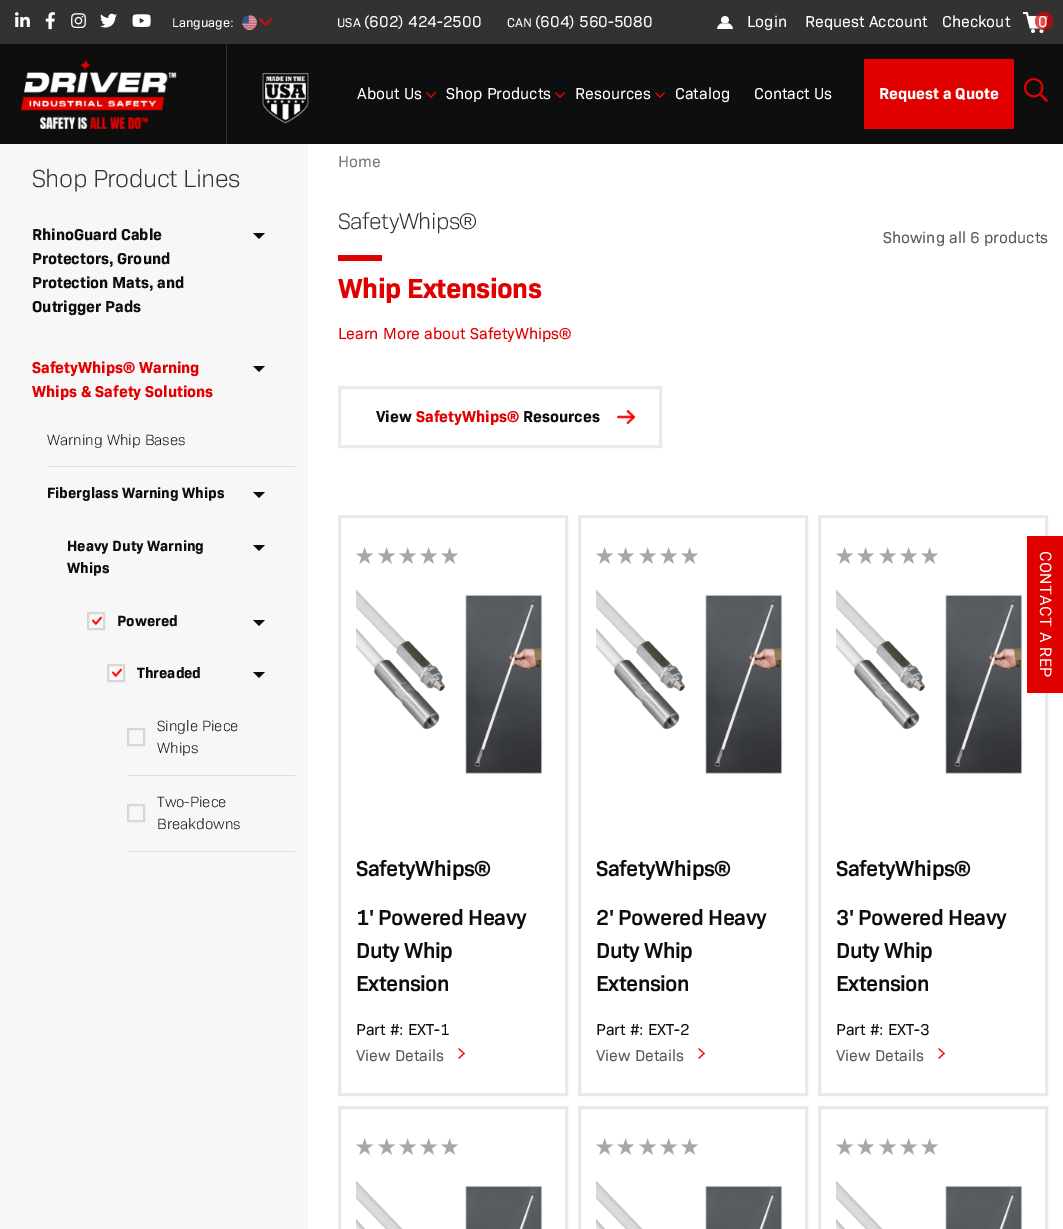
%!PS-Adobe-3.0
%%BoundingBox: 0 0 1063 1229
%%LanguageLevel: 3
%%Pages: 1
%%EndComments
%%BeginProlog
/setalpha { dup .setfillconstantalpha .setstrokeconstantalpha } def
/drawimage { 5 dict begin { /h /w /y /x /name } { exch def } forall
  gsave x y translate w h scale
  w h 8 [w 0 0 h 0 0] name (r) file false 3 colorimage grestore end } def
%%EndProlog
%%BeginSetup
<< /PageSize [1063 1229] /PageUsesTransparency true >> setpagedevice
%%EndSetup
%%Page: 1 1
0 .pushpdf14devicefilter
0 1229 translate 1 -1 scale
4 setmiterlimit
1 setgray
0 0 1063 1229 rectfill
0.059 0.055 0.055 setrgbcolor
0 44 1063 100 rectfill
0.196 setgray
0 0 1063 44 rectfill
(images/1.raw) 15 12 15 15 drawimage
(images/2.raw) 45 12 10 18 drawimage
(images/3.raw) 71 13 15 16 drawimage
(images/4.raw) 100 13 17 15 drawimage
(images/5.raw) 132 14 19 13 drawimage
(images/6.raw) 242 15 15 15 drawimage
(images/7.raw) 258 17 15 10 drawimage
(images/8.raw) 717 16 16 13 drawimage
(images/9.raw) 1023 12 25 21 drawimage
0.7 setalpha
0.878 0 0 setrgbcolor
newpath 1044 21 9 0 360 arc closepath fill
1 setalpha
(images/10.raw) 20 59 157 70 drawimage
0.196 setgray
226 44 1 100 rectfill
(images/11.raw) 262 73 47 51 drawimage
(images/12.raw) 426 92 10 6 drawimage
(images/13.raw) 555 92 10 6 drawimage
(images/13.raw) 655 92 10 6 drawimage
0.878 0 0 setrgbcolor
864 59 150 70 rectfill
(images/14.raw) 1024 78 24 24 drawimage
0.969 setgray
0 144 308 1085 rectfill
0.059 0.055 0.055 setrgbcolor
newpath 253 233 moveto 265 233 lineto 259 239 lineto closepath fill
newpath 253 366 moveto 265 366 lineto 259 372 lineto closepath fill
0.871 setgray
47 466 248 1 rectfill
0.059 0.055 0.055 setrgbcolor
newpath 253 545 moveto 265 545 lineto 259 551 lineto closepath 253 492 moveto 265 492 lineto 259 498 lineto closepath fill
0.843 setgray
2 setlinewidth
88 613 16 16 rectstroke
(images/15.raw) 92 616 10 9 drawimage
108 665 16 16 rectstroke
(images/15.raw) 112 668 10 9 drawimage
0.059 0.055 0.055 setrgbcolor
newpath 253 672 moveto 265 672 lineto 259 678 lineto closepath 253 620 moveto 265 620 lineto 259 626 lineto closepath fill
0.871 setgray
127 775 168 1 rectfill
0.843 setgray
128 729 16 16 rectstroke
0.871 setgray
127 851 168 1 rectfill
0.843 setgray
128 805 16 16 rectstroke
0.878 0 0 setrgbcolor
338 255 44 6 rectfill
(images/16.raw) 617 410 18 14 drawimage
0.918 setgray
3 setlinewidth
339.5 387.5 321 59 rectstroke
0.914 setgray
339.5 516.5 227 578 rectstroke
(images/17.raw) 356 547 17 17 drawimage
(images/17.raw) 378 547 17 17 drawimage
(images/17.raw) 399 547 17 17 drawimage
(images/17.raw) 420 547 17 17 drawimage
(images/17.raw) 441 547 17 17 drawimage
(images/18.raw) 356 590 187 184 drawimage
(images/19.raw) 458 1048 7 11 drawimage
579.5 516.5 227 578 rectstroke
(images/17.raw) 596 547 17 17 drawimage
(images/17.raw) 617 547 17 17 drawimage
(images/17.raw) 639 547 17 17 drawimage
(images/17.raw) 660 547 17 17 drawimage
(images/17.raw) 681 547 17 17 drawimage
(images/18.raw) 596 590 187 184 drawimage
(images/19.raw) 698 1048 7 11 drawimage
819.5 516.5 227 578 rectstroke
(images/17.raw) 836 547 17 17 drawimage
(images/17.raw) 857 547 17 17 drawimage
(images/17.raw) 879 547 17 17 drawimage
(images/17.raw) 900 547 17 17 drawimage
(images/17.raw) 921 547 17 17 drawimage
(images/20.raw) 836 590 187 184 drawimage
(images/19.raw) 938 1048 7 11 drawimage
339.5 1107.5 227 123 rectstroke
(images/17.raw) 356 1138 17 17 drawimage
(images/17.raw) 378 1138 17 17 drawimage
(images/17.raw) 399 1138 17 17 drawimage
(images/17.raw) 420 1138 17 17 drawimage
(images/17.raw) 441 1138 17 17 drawimage
(images/21.raw) 356 1181 187 48 drawimage
579.5 1107.5 227 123 rectstroke
(images/17.raw) 596 1138 17 17 drawimage
(images/17.raw) 617 1138 17 17 drawimage
(images/17.raw) 639 1138 17 17 drawimage
(images/17.raw) 660 1138 17 17 drawimage
(images/17.raw) 681 1138 17 17 drawimage
(images/21.raw) 596 1181 187 48 drawimage
819.5 1107.5 227 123 rectstroke
(images/17.raw) 836 1138 17 17 drawimage
(images/17.raw) 857 1138 17 17 drawimage
(images/17.raw) 879 1138 17 17 drawimage
(images/17.raw) 900 1138 17 17 drawimage
(images/17.raw) 921 1138 17 17 drawimage
(images/21.raw) 836 1181 187 48 drawimage
0.878 0 0 setrgbcolor
1027 536 36 157 rectfill
/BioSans-Regular [13 0 0 -13 0 0] selectfont
1 setgray
172 27 moveto (Language:) show
337 27 moveto (USA) show
/BioSans-Regular [16 0 0 -16 0 0] selectfont
364 27 moveto (\(602\) 424-2500) show
/BioSans-Regular [13 0 0 -13 0 0] selectfont
507 27 moveto (CAN) show
/BioSans-Regular [16 0 0 -16 0 0] selectfont
535 27 moveto (\(604\) 560-5080) show
747 27 moveto (Login) show
805 27 moveto (Request Account) show
942 27 moveto (Checkout) show
1038 27 moveto (0) show
357 99 moveto (About Us) show
446 99 moveto (Shop Products) show
575 99 moveto (Resources) show
675 99 moveto (Catalog) show
754 99 moveto (Contact Us) show
/BioSans-Bold [16 0 0 -16 0 0] selectfont
879 99 moveto (Request a Quote) show
/BioSans-Light [25 0 0 -25 0 0] selectfont
0.2 setgray
32 187 moveto -0.5 0 (Shop Product Lines) ashow
/BioSans-Bold [16 0 0 -16 0 0] selectfont
0.059 0.055 0.055 setrgbcolor
32 240 moveto (RhinoGuard Cable) show
32 264 moveto (Protectors, Ground) show
32 288 moveto (Protection Mats, and) show
32 312 moveto (Outrigger Pads) show
0.878 0 0 setrgbcolor
32 373 moveto (SafetyWhips® Warning) show
32 397 moveto (Whips & Safety Solutions) show
/BioSans-Light [15 0 0 -15 0 0] selectfont
0.059 0.055 0.055 setrgbcolor
47 445 moveto (Warning Whip Bases) show
/BioSans-Bold [15 0 0 -15 0 0] selectfont
47 498 moveto (Fiberglass Warning Whips) show
67 551 moveto (Heavy Duty Warning) show
67 573 moveto (Whips) show
117 626 moveto (Powered) show
137 678 moveto (Threaded) show
/BioSans-Light [15 0 0 -15 0 0] selectfont
157 731 moveto (Single Piece) show
157 753 moveto (Whips) show
157 807 moveto (Two-Piece) show
157 829 moveto (Breakdowns) show
/BioSans-Regular [16 0 0 -16 0 0] selectfont
0.463 setgray
338 167 moveto (Home) show
/BioSans-Light [23 0 0 -23 0 0] selectfont
0.2 setgray
338 229 moveto -0.5 0 (SafetyWhips®) ashow
/BioSans-Bold [28 0 0 -28 0 0] selectfont
0.878 0 0 setrgbcolor
338 298 moveto -0.5 0 (Whip Extensions) ashow
/BioSans-Regular [16 0 0 -16 0 0] selectfont
0.353 setgray
883 243 moveto (Showing all 6 products) show
0.878 0 0 setrgbcolor
338 339 moveto (Learn More about SafetyWhips®) show
/BioSans-Bold [16 0 0 -16 0 0] selectfont
0.059 0.055 0.055 setrgbcolor
376 422 moveto (View) show
0.878 0 0 setrgbcolor
416 422 moveto (SafetyWhips®) show
0.059 0.055 0.055 setrgbcolor
523 422 moveto (Resources) show
/BioSans-SemiBold [22 0 0 -22 0 0] selectfont
356 876 moveto -0.5 0 (SafetyWhips®) ashow
356 925 moveto -0.5 0 (1' Powered Heavy) ashow
356 958 moveto -0.5 0 (Duty Whip) ashow
356 991 moveto -0.5 0 (Extension) ashow
/BioSans-Regular [16 0 0 -16 0 0] selectfont
356 1035 moveto (Part #: EXT-1) show
0.353 setgray
356 1061 moveto (View Details) show
/BioSans-SemiBold [22 0 0 -22 0 0] selectfont
0.059 0.055 0.055 setrgbcolor
596 876 moveto -0.5 0 (SafetyWhips®) ashow
596 925 moveto -0.5 0 (2' Powered Heavy) ashow
596 958 moveto -0.5 0 (Duty Whip) ashow
596 991 moveto -0.5 0 (Extension) ashow
/BioSans-Regular [16 0 0 -16 0 0] selectfont
596 1035 moveto (Part #: EXT-2) show
0.353 setgray
596 1061 moveto (View Details) show
/BioSans-SemiBold [22 0 0 -22 0 0] selectfont
0.059 0.055 0.055 setrgbcolor
836 876 moveto -0.5 0 (SafetyWhips®) ashow
836 925 moveto -0.5 0 (3' Powered Heavy) ashow
836 958 moveto -0.5 0 (Duty Whip) ashow
836 991 moveto -0.5 0 (Extension) ashow
/BioSans-Regular [16 0 0 -16 0 0] selectfont
836 1035 moveto (Part #: EXT-3) show
0.353 setgray
836 1061 moveto (View Details) show
/Roboto-Regular [16 0 0 -16 0 0] selectfont
1 setgray
gsave 1040 551 translate 90 rotate 0 0 moveto 0.5 0 (CONTACT A REP) ashow grestore
.poppdf14devicefilter showpage
%%EOF
